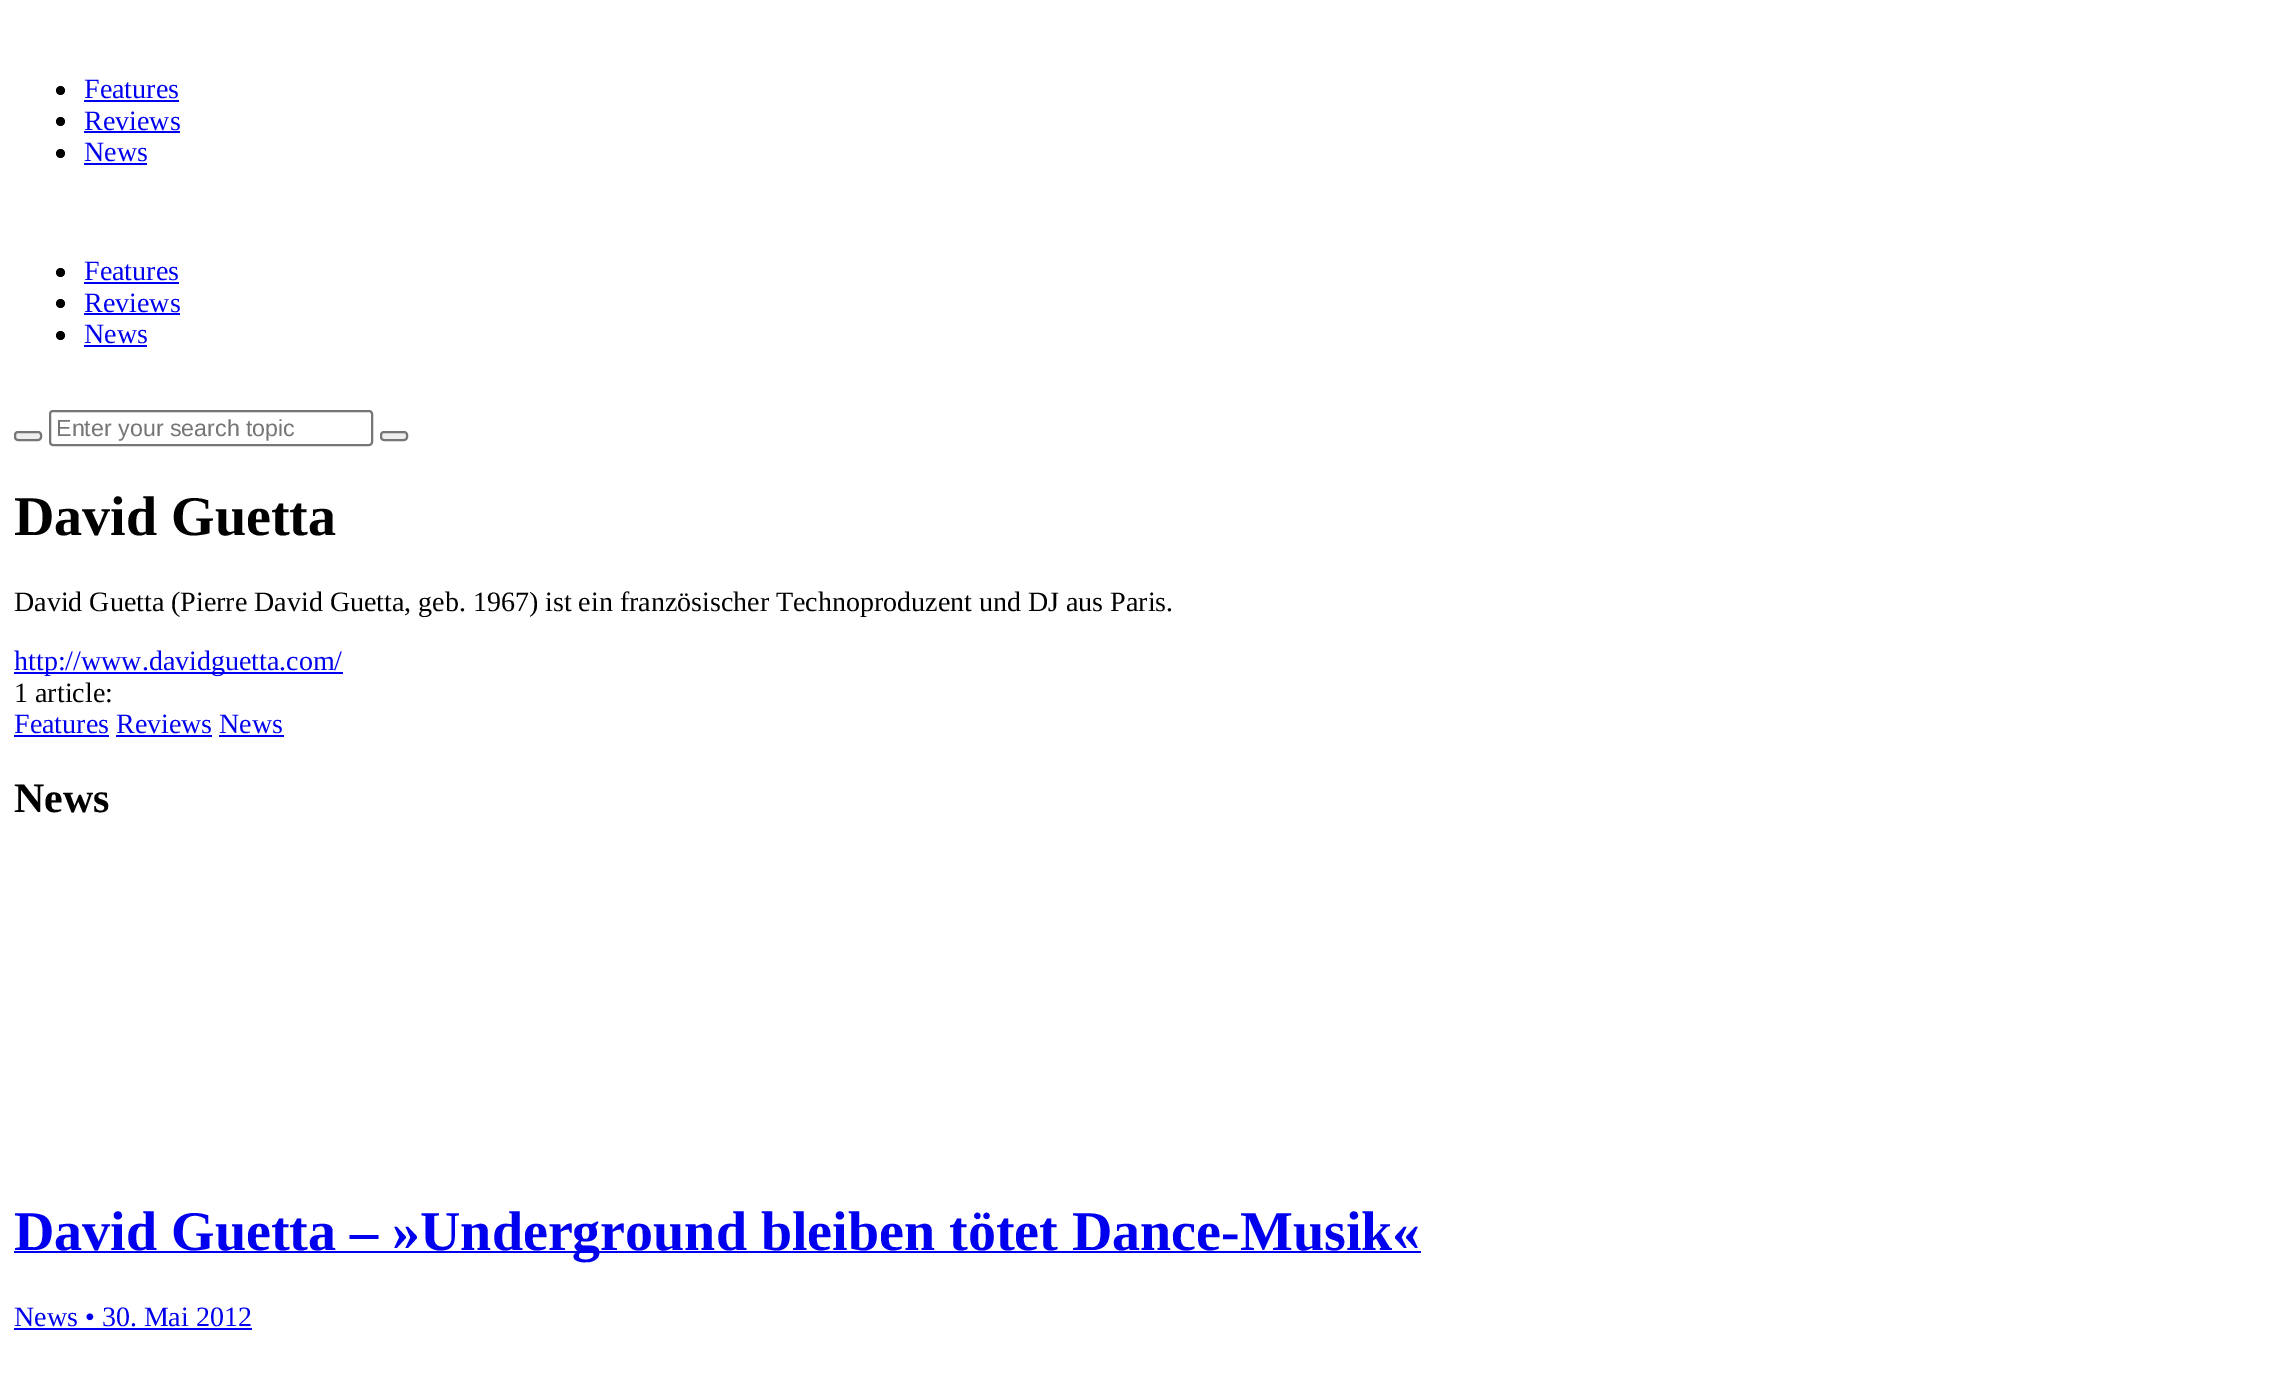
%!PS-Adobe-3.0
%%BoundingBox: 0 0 2291 1392
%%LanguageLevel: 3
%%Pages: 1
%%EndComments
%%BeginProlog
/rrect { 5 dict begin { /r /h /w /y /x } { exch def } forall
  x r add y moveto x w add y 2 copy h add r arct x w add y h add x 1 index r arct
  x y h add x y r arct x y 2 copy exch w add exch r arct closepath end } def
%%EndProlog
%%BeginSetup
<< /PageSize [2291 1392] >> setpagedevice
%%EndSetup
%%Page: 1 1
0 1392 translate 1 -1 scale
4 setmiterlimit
1 setgray
0 0 2291 1392 rectfill
0 setgray
newpath 60.5 90.5 4.5 0 360 arc closepath fill
0 0 0.933 setrgbcolor
84 100 95 2 rectfill
0 setgray
newpath 60.5 121.5 4.5 0 360 arc closepath fill
0 0 0.933 setrgbcolor
84 131 96 2 rectfill
0 setgray
newpath 60.5 153.5 4.5 0 360 arc closepath fill
0 0 0.933 setrgbcolor
84 163 63 2 rectfill
0 setgray
newpath 60.5 272.5 4.5 0 360 arc closepath fill
0 0 0.933 setrgbcolor
84 282 95 2 rectfill
0 setgray
newpath 60.5 303.5 4.5 0 360 arc closepath fill
0 0 0.933 setrgbcolor
84 313 96 2 rectfill
0 setgray
newpath 60.5 335.5 4.5 0 360 arc closepath fill
0 0 0.933 setrgbcolor
84 345 63 2 rectfill
0.937 setgray
15 432 26 8 3 rrect gsave fill grestore
0.463 setgray
2 setlinewidth
stroke
50 411 322 34 3 rrect stroke
0.937 setgray
381 432 26 8 3 rrect gsave fill grestore
0.463 setgray
stroke
0 0 0.933 setrgbcolor
14 672 329 2 rectfill
14 735 95 2 rectfill
116 735 96 2 rectfill
219 735 65 2 rectfill
14 1251 1407 2 rectfill
14 1328 238 2 rectfill
/LiberationSerif-Regular [28 0 0 -28 0 0] selectfont
84 98 moveto (Features) show
84 130 moveto (Reviews) show
84 161 moveto (News) show
84 280 moveto (Features) show
84 312 moveto (Reviews) show
84 343 moveto (News) show
/LiberationSans-Regular [23.25 0 0 -23.25 0 0] selectfont
0.459 setgray
56 436 moveto (Enter your search topic) show
/LiberationSerif-Bold [56 0 0 -56 0 0] selectfont
0 setgray
14 535 moveto (David Guetta) show
/LiberationSerif-Regular [28 0 0 -28 0 0] selectfont
14 611 moveto (David Guetta \(Pierre David Guetta, geb. 1967\) ist ein französischer Technoproduzent und DJ aus Paris.) show
0 0 0.933 setrgbcolor
14 670 moveto (http://www.davidguetta.com/) show
0 setgray
14 702 moveto (1 article:) show
0 0 0.933 setrgbcolor
14 733 moveto (Features Reviews News) show
/LiberationSerif-Bold [42 0 0 -42 0 0] selectfont
0 setgray
14 812 moveto (News) show
/LiberationSerif-Bold [56 0 0 -56 0 0] selectfont
0 0 0.933 setrgbcolor
14 1250 moveto (David Guetta – »Underground bleiben tötet Dance-Musik«) show
/LiberationSerif-Regular [28 0 0 -28 0 0] selectfont
14 1326 moveto (News • 30. Mai 2012) show
showpage
%%EOF
